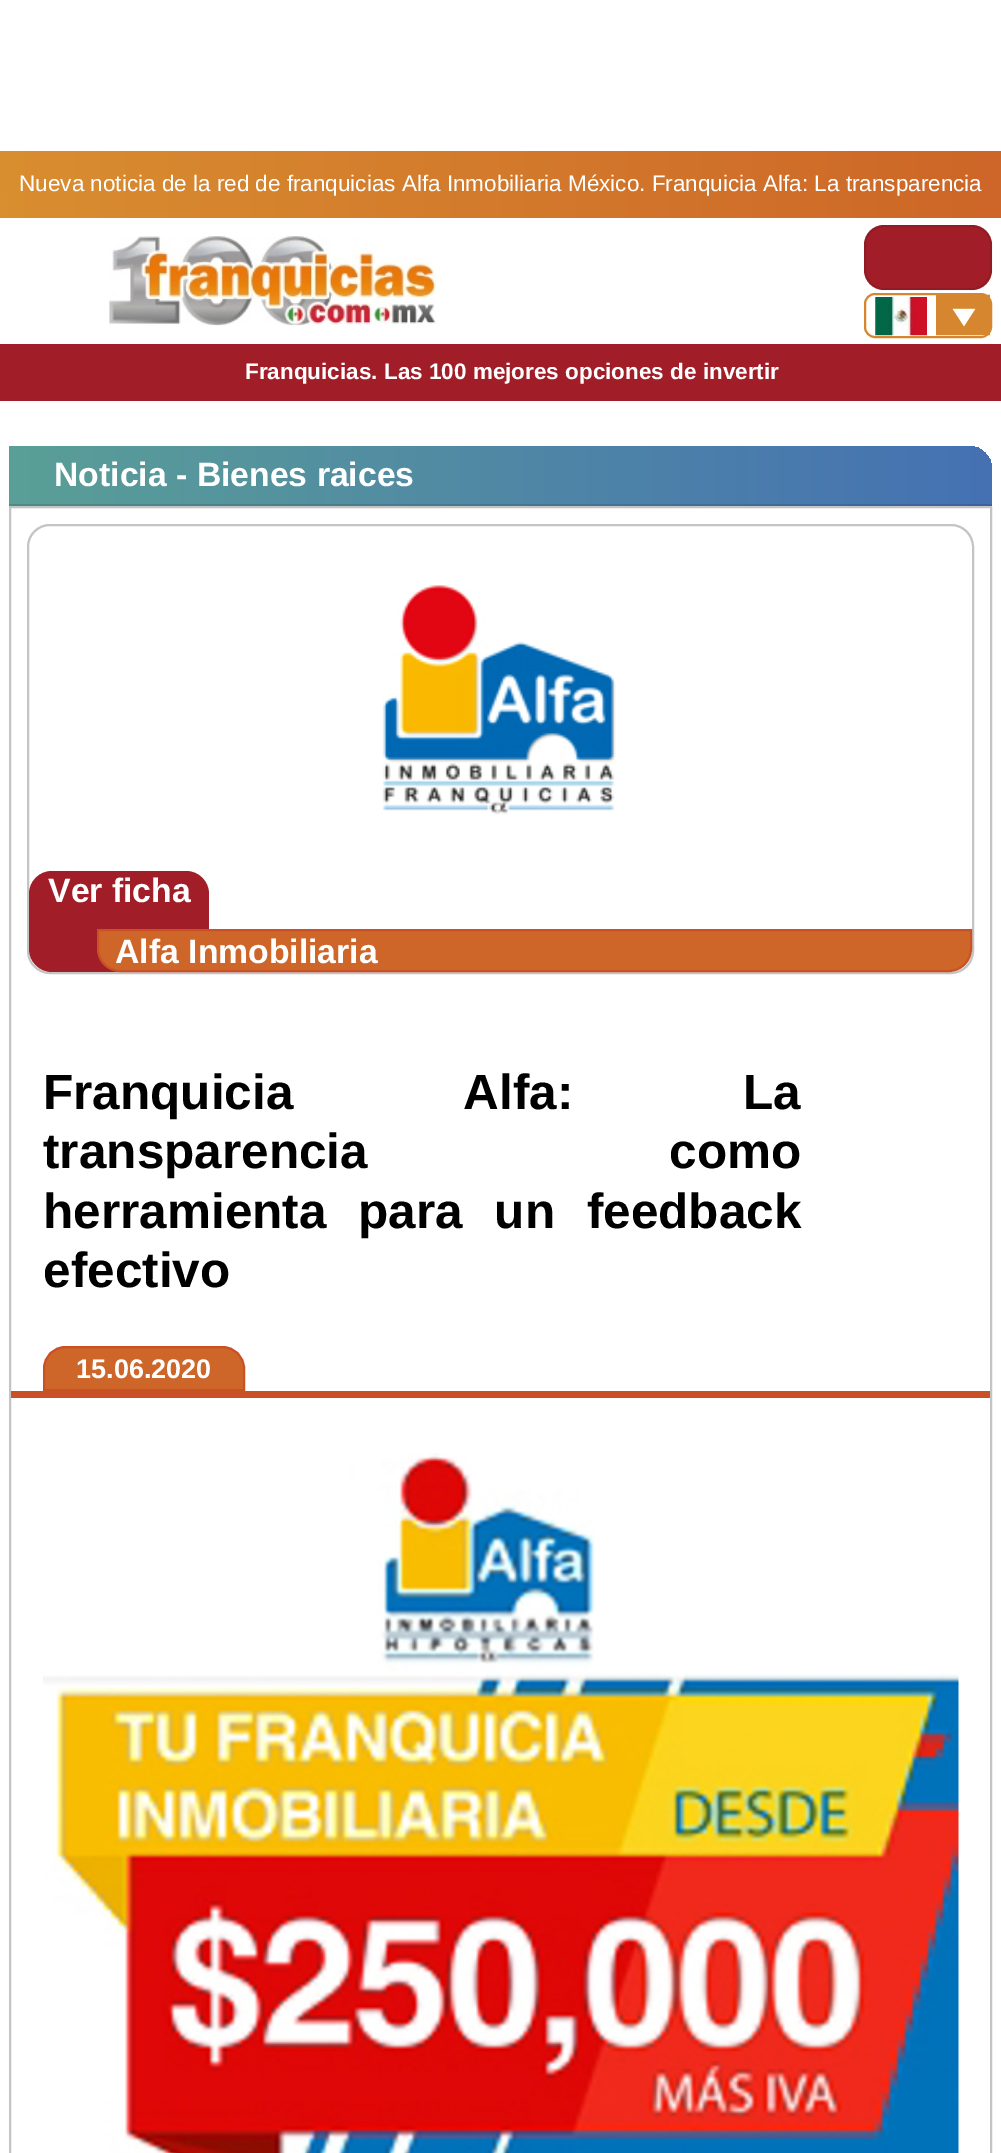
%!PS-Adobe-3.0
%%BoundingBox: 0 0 1001 2153
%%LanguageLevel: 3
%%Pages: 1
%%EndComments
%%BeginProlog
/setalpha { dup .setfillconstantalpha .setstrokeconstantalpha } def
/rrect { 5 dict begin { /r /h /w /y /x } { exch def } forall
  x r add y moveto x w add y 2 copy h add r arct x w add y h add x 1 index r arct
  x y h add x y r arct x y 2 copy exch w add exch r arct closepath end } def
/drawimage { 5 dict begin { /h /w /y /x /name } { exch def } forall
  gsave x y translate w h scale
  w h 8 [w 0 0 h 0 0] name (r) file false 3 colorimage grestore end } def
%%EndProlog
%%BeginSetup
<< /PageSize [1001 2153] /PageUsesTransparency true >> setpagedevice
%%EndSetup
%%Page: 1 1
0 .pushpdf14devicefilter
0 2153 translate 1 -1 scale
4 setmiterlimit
1 setgray
0 0 1001 2153 rectfill
gsave newpath 0 151 moveto 1001 151 lineto 1001 218 lineto 0 218 lineto closepath clip newpath
<< /ShadingType 2 /ColorSpace /DeviceRGB /Coords [0 185 1001 184] /Extend [true true] /Function << /FunctionType 2 /Domain [0 1] /C0 [0.851 0.557 0.188] /C1 [0.804 0.4 0.157] /N 1 >> >> shfill grestore
(images/1.raw) 109 236 328 90 drawimage
0.631 0.118 0.157 setrgbcolor
864 225 128 65 20 rrect fill
0.1 setalpha
0 setgray
2 setlinewidth
865 226 126 63 19 rrect stroke
1 setalpha
0.839 0.525 0.18 setrgbcolor
865 294 126 43 10 rrect stroke
(images/2.raw) 875 297 52 39 drawimage
(images/3.raw) 936 294 54 42 drawimage
0.631 0.118 0.157 setrgbcolor
0 344 1001 57 rectfill
gsave newpath 9 446 moveto 969 446 lineto 981.5 446 992 456.5 992 469 curveto 992 506 lineto 9 506 lineto closepath clip newpath
<< /ShadingType 2 /ColorSpace /DeviceRGB /Coords [992 475 9 475] /Extend [true true] /Function << /FunctionType 2 /Domain [0 1] /C0 [0.271 0.443 0.702] /C1 [0.353 0.624 0.592] /N 1 >> >> shfill grestore
gsave newpath 9 504 moveto 992 504 lineto 992 506 lineto 9 506 lineto closepath clip newpath
<< /ShadingType 2 /ColorSpace /DeviceRGB /Coords [992 475 9 475] /Extend [true true] /Function << /FunctionType 2 /Domain [0 1] /C0 [0.239 0.388 0.62] /C1 [0.31 0.549 0.522] /N 1 >> >> shfill grestore
0.769 setgray
10 507 981 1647 rectstroke
28 525 945 448 22 rrect stroke
(images/4.raw) 382 585 234 230 drawimage
0.631 0.118 0.157 setrgbcolor
29 871 180 101 23 rrect fill
0.804 0.4 0.157 setrgbcolor
newpath 98 930 moveto 971 930 lineto 971 949 lineto 971 961 961 971 949 971 curveto 120 971 lineto 108 971 98 961 98 949 curveto closepath gsave fill grestore
0.792 0.314 0.149 setrgbcolor
stroke
11 1391 979 7 rectfill
0.804 0.4 0.157 setrgbcolor
newpath 65.5 1347 moveto 222.5 1347 lineto 234.5 1347 244 1356.5 244 1368.5 curveto 244 1390 lineto 44 1390 lineto 44 1368.5 lineto 44 1356.5 53.5 1347 65.5 1347 curveto closepath gsave fill grestore
0.792 0.314 0.149 setrgbcolor
stroke
(images/5.raw) 43 1453 916 700 drawimage
/LiberationSans-Regular [22.5 0 0 -22.5 0 0] selectfont
1 setgray
19 191 moveto (Nueva noticia de la red de franquicias Alfa Inmobiliaria México. Franquicia Alfa: La transparencia) show
/LiberationSans-Bold [22.5 0 0 -22.5 0 0] selectfont
245 379 moveto (Franquicias. Las 100 mejores opciones de invertir) show
/LiberationSans-Bold [33.75 0 0 -33.75 0 0] selectfont
54 486 moveto (Noticia - Bienes raices) show
48 902 moveto (Ver ficha) show
115 963 moveto (Alfa Inmobiliaria) show
/LiberationSans-Bold [49.5 0 0 -49.5 0 0] selectfont
0 setgray
43 1109 moveto 156 0 32 (Franquicia Alfa: La) widthshow
43 1168 moveto 288 0 32 (transparencia como) widthshow
43 1228 moveto 18 0 32 (herramienta para un feedback) widthshow
43 1287 moveto (efectivo) show
/LiberationSans-Bold [27 0 0 -27 0 0] selectfont
1 setgray
76 1378 moveto (15.06.2020) show
.poppdf14devicefilter showpage
%%EOF
